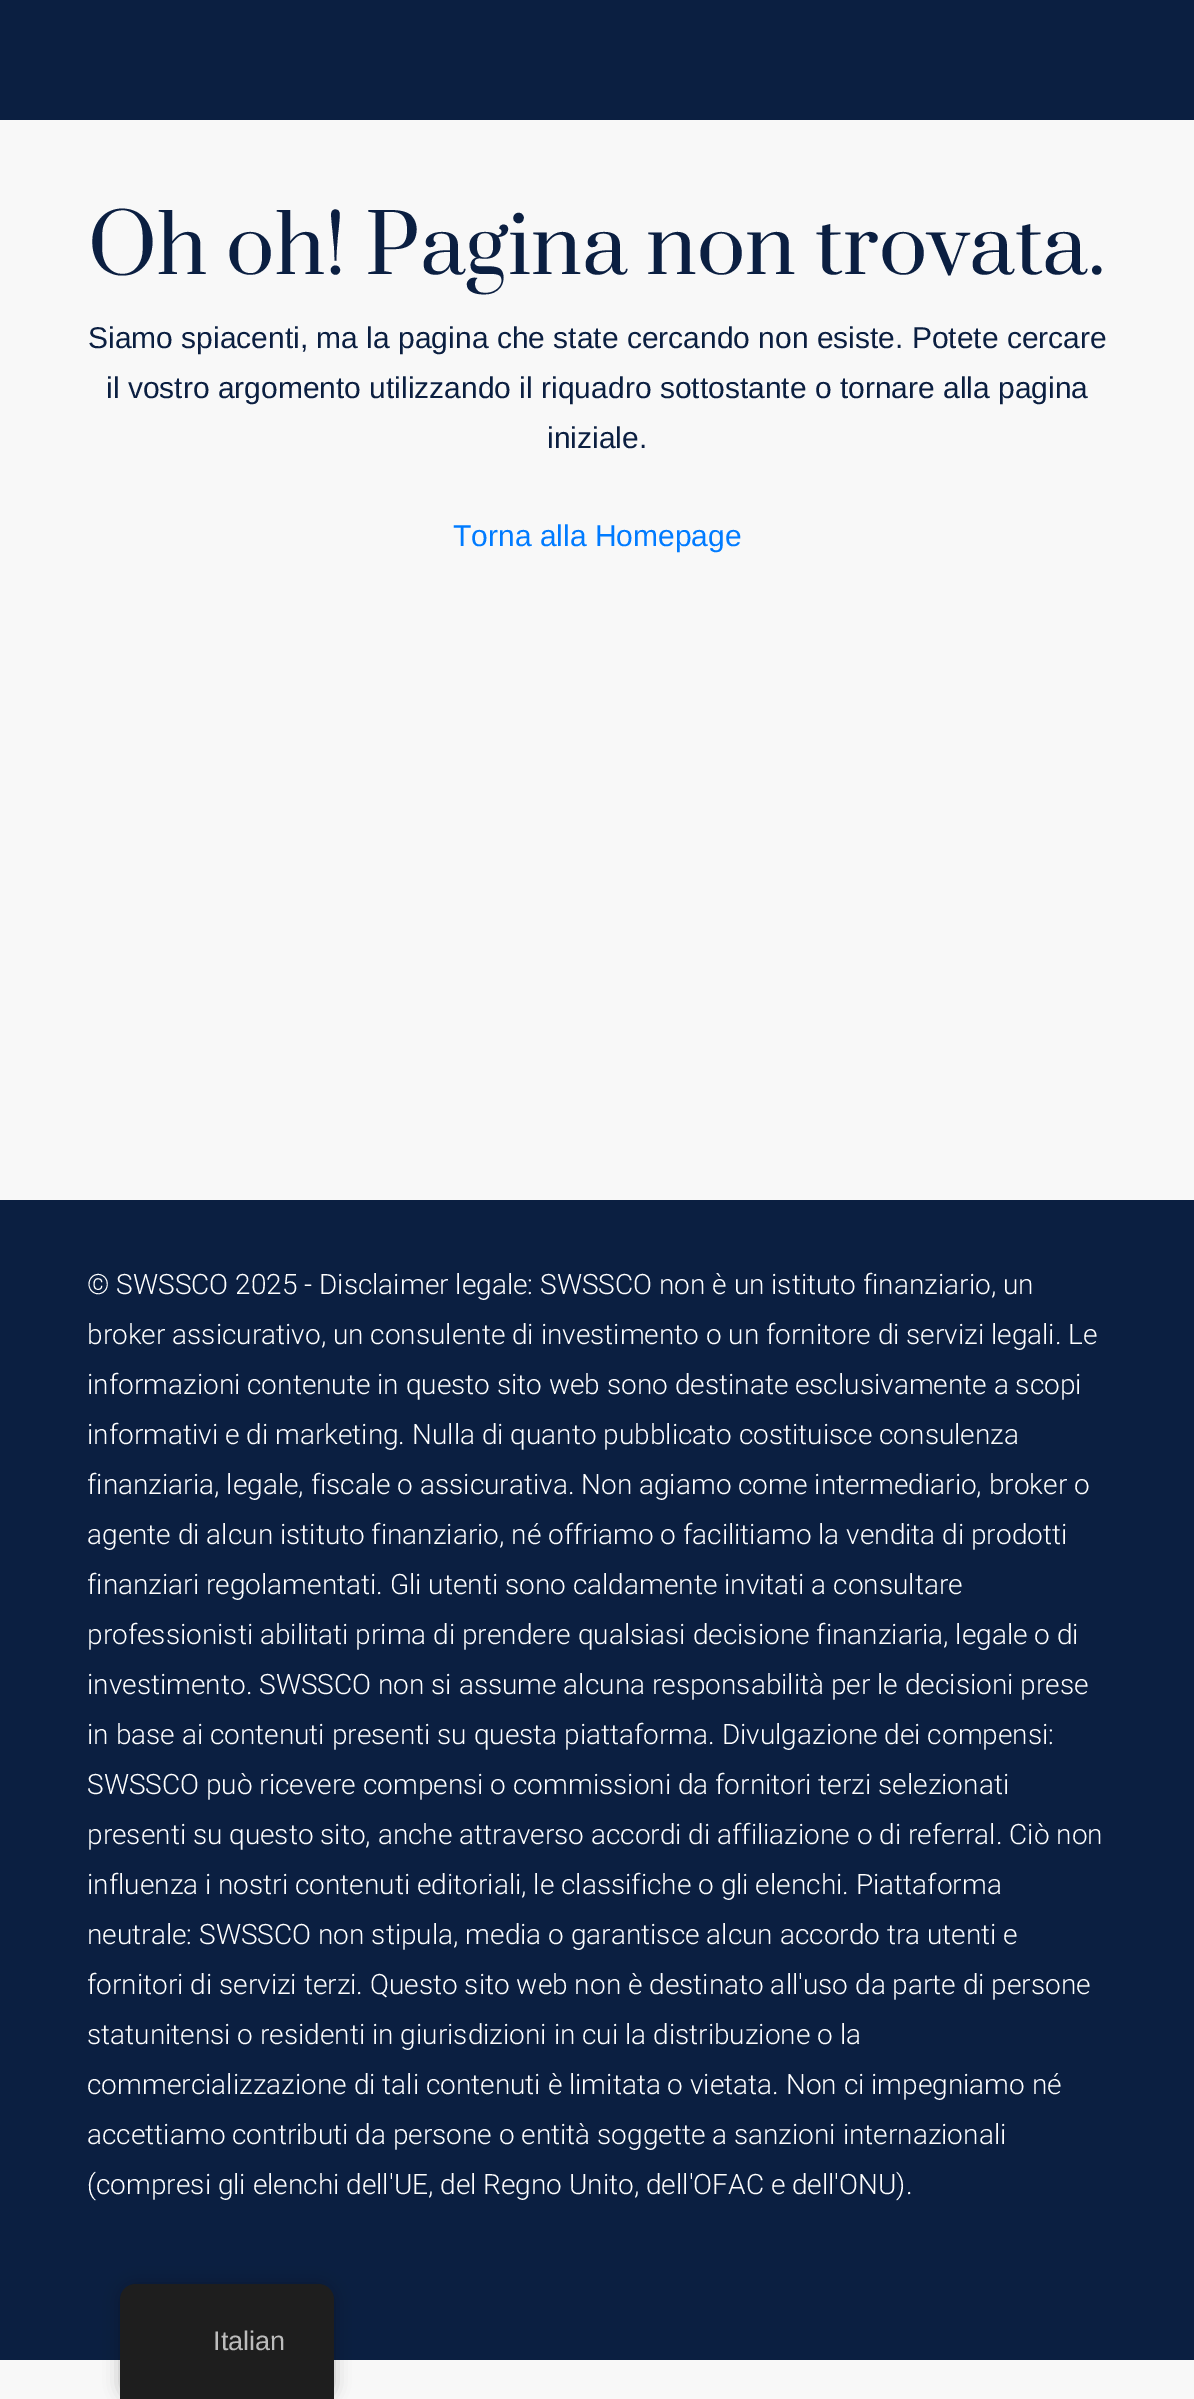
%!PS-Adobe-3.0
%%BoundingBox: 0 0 1194 2399
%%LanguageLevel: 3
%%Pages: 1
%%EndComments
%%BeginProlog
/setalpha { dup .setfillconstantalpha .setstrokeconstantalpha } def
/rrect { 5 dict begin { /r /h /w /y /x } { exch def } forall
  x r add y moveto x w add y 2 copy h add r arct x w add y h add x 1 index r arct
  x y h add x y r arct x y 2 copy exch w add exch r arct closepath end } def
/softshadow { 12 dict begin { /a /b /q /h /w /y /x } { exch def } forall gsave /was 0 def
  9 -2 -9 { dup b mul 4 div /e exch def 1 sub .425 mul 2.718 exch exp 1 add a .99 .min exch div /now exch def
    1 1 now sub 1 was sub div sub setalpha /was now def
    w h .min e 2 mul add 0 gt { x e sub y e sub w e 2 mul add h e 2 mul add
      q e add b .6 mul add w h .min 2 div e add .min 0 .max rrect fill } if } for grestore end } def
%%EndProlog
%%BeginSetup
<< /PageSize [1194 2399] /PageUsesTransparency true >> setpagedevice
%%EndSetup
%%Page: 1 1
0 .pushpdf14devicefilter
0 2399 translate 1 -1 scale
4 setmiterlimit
0.973 setgray
0 0 1194 2399 rectfill
0.043 0.122 0.255 setrgbcolor
0 0 1194 120 rectfill
0 1200 1194 1160 rectfill
0 setgray
120 2284 214 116 16 8 0.25 softshadow
0.118 setgray
newpath 136 2284 moveto 318 2284 lineto 327 2284 334 2291 334 2300 curveto 334 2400 lineto 120 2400 lineto 120 2300 lineto 120 2291 127 2284 136 2284 curveto closepath fill
/Prata-Regular [80 0 0 -80 0 0] selectfont
0.043 0.122 0.255 setrgbcolor
88 274 moveto (Oh oh! Pagina non trovata.) show
/LiberationSans-Regular [30 0 0 -30 0 0] selectfont
88 348 moveto (Siamo spiacenti, ma la pagina che state cercando non esiste. Potete cercare) show
106 398 moveto (il vostro argomento utilizzando il riquadro sottostante o tornare alla pagina) show
547 448 moveto (iniziale.) show
0 0.482 1 setrgbcolor
453 546 moveto (Torna alla Homepage) show
/Roboto-Light [28 0 0 -28 0 0] selectfont
1 setgray
87 1294 moveto (© SWSSCO 2025 - Disclaimer legale: SWSSCO non è un istituto finanziario, un) show
87 1344 moveto (broker assicurativo, un consulente di investimento o un fornitore di servizi legali. Le) show
87 1394 moveto (informazioni contenute in questo sito web sono destinate esclusivamente a scopi) show
87 1444 moveto (informativi e di marketing. Nulla di quanto pubblicato costituisce consulenza) show
87 1494 moveto (finanziaria, legale, fiscale o assicurativa. Non agiamo come intermediario, broker o) show
87 1544 moveto (agente di alcun istituto finanziario, né offriamo o facilitiamo la vendita di prodotti) show
87 1594 moveto (finanziari regolamentati. Gli utenti sono caldamente invitati a consultare) show
87 1644 moveto (professionisti abilitati prima di prendere qualsiasi decisione finanziaria, legale o di) show
87 1694 moveto (investimento. SWSSCO non si assume alcuna responsabilità per le decisioni prese) show
87 1744 moveto (in base ai contenuti presenti su questa piattaforma. Divulgazione dei compensi:) show
87 1794 moveto (SWSSCO può ricevere compensi o commissioni da fornitori terzi selezionati) show
87 1844 moveto (presenti su questo sito, anche attraverso accordi di affiliazione o di referral. Ciò non) show
87 1894 moveto (influenza i nostri contenuti editoriali, le classifiche o gli elenchi. Piattaforma) show
87 1944 moveto (neutrale: SWSSCO non stipula, media o garantisce alcun accordo tra utenti e) show
87 1994 moveto (fornitori di servizi terzi. Questo sito web non è destinato all'uso da parte di persone) show
87 2044 moveto (statunitensi o residenti in giurisdizioni in cui la distribuzione o la) show
87 2094 moveto (commercializzazione di tali contenuti è limitata o vietata. Non ci impegniamo né) show
87 2144 moveto (accettiamo contributi da persone o entità soggette a sanzioni internazionali) show
87 2194 moveto (\(compresi gli elenchi dell'UE, del Regno Unito, dell'OFAC e dell'ONU\).) show
/LiberationSans-Regular [27 0 0 -27 0 0] selectfont
0.741 setgray
213 2350 moveto (Italian) show
.poppdf14devicefilter showpage
%%EOF
